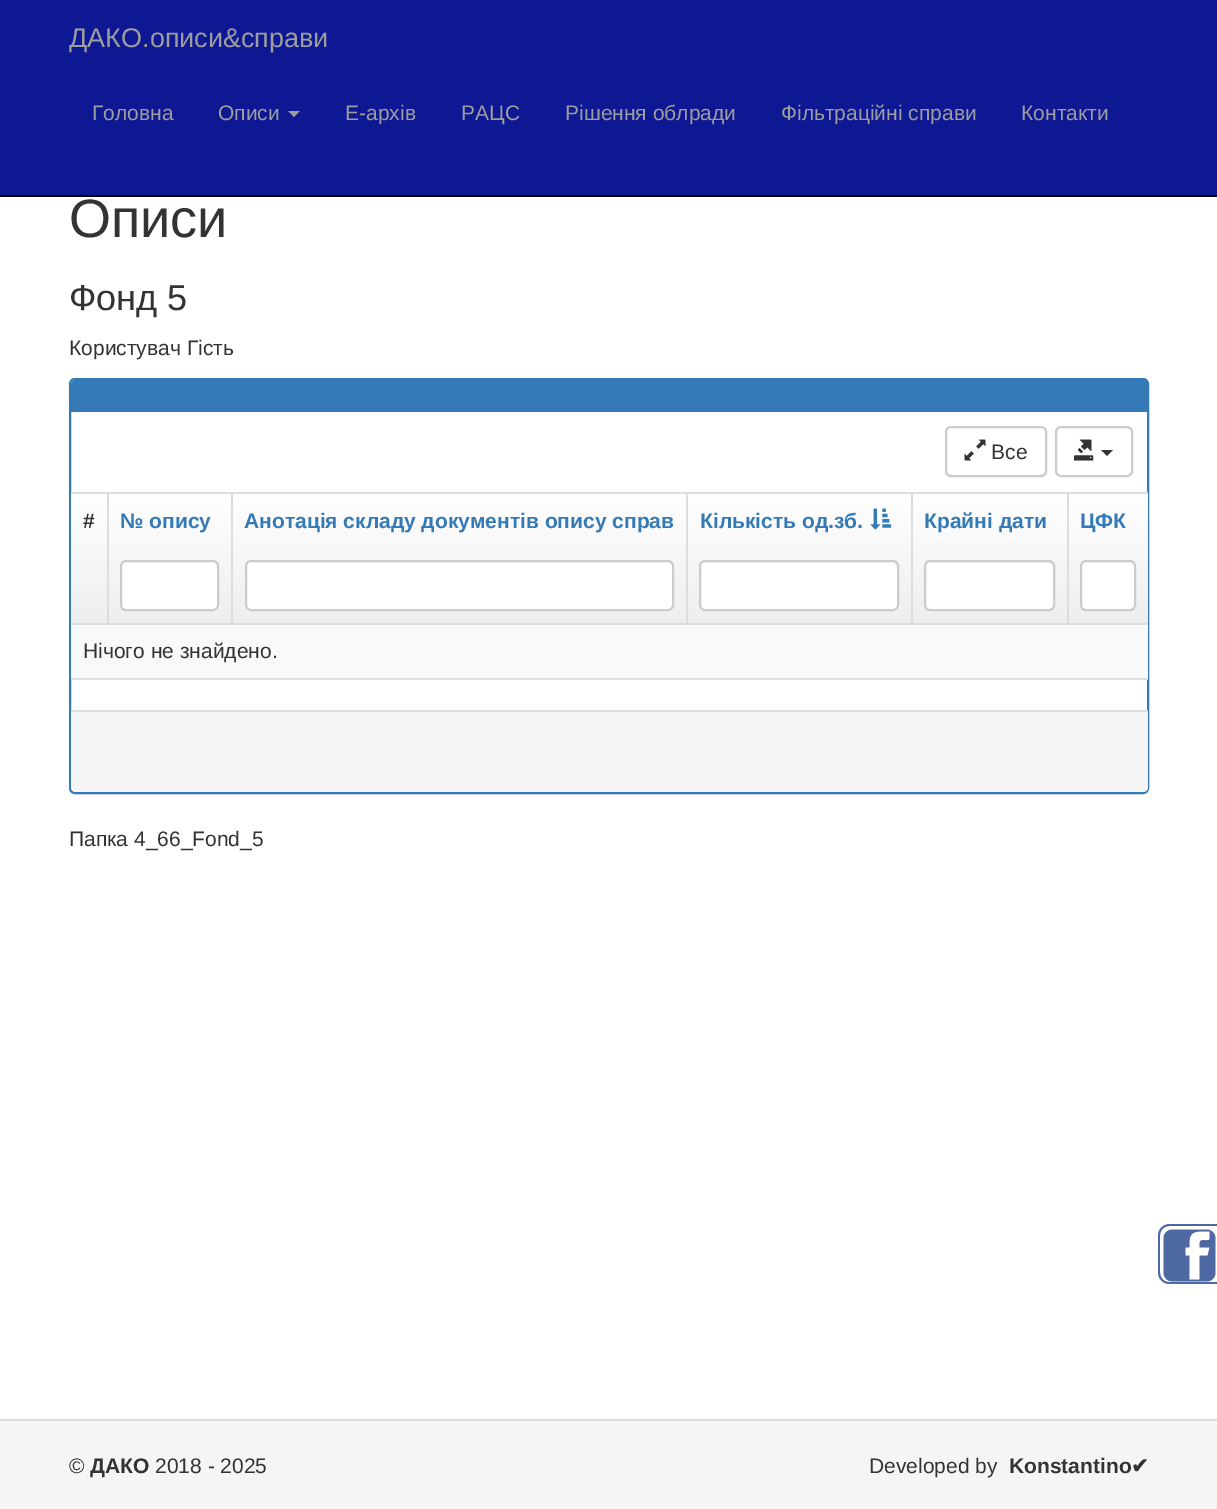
%!PS-Adobe-3.0
%%BoundingBox: 0 0 1217 1509
%%LanguageLevel: 3
%%Pages: 1
%%EndComments
%%BeginProlog
/setalpha { dup .setfillconstantalpha .setstrokeconstantalpha } def
/rrect { 5 dict begin { /r /h /w /y /x } { exch def } forall
  x r add y moveto x w add y 2 copy h add r arct x w add y h add x 1 index r arct
  x y h add x y r arct x y 2 copy exch w add exch r arct closepath end } def
/softshadow { 12 dict begin { /a /b /q /h /w /y /x } { exch def } forall gsave /was 0 def
  9 -2 -9 { dup b mul 4 div /e exch def 1 sub .425 mul 2.718 exch exp 1 add a .99 .min exch div /now exch def
    1 1 now sub 1 was sub div sub setalpha /was now def
    w h .min e 2 mul add 0 gt { x e sub y e sub w e 2 mul add h e 2 mul add
      q e add b .6 mul add w h .min 2 div e add .min 0 .max rrect fill } if } for grestore end } def
/drawimage { 5 dict begin { /h /w /y /x /name } { exch def } forall
  gsave x y translate w h scale
  w h 8 [w 0 0 h 0 0] name (r) file false 3 colorimage grestore end } def
%%EndProlog
%%BeginSetup
<< /PageSize [1217 1509] /PageUsesTransparency true >> setpagedevice
%%EndSetup
%%Page: 1 1
0 .pushpdf14devicefilter
0 1509 translate 1 -1 scale
4 setmiterlimit
1 setgray
0 0 1217 1509 rectfill
0.055 0.094 0.576 setrgbcolor
0 0 1217 195 rectfill
0.031 setgray
0 195 1217 2 rectfill
0.616 setgray
newpath 288 111 moveto 300 111 lineto 294 117 lineto closepath fill
0 setgray
69 380 1080 415 6 1 0.05 softshadow
1 setgray
70 379 1078 414 5 rrect gsave fill grestore
0.2 0.478 0.718 setrgbcolor
2 setlinewidth
stroke
newpath 76 380 moveto 1143 380 lineto 1146 380 1148 382 1148 385 curveto 1148 411 lineto 71 411 lineto 71 385 lineto 71 382 73 380 76 380 curveto closepath fill
71 411 1077 1 rectfill
0.867 setgray
71 492 1077 2 rectfill
0.8 setgray
946 427 100 49 5 rrect stroke
(images/1.raw) 964 439 22 22 drawimage
1056 427 76 49 5 rrect stroke
(images/2.raw) 1074 439 20 22 drawimage
0.2 setgray
newpath 1101 450 moveto 1113 450 lineto 1107 456 lineto closepath fill
gsave newpath 71 494 moveto 1148 494 lineto 1148 623 lineto 71 623 lineto closepath clip newpath
<< /ShadingType 2 /ColorSpace /DeviceRGB /Coords [609 493 609 623] /Extend [true true] /Function << /FunctionType 2 /Domain [0 1] /C0 [1 1 1] /C1 [0.933 0.933 0.933] /N 1 >> >> shfill grestore
0.867 setgray
71 623 1077 2 rectfill
107 494 2 130 rectfill
1 setgray
120 560 99 51 6 rrect fill
0.925 setgray
newpath 126 562 moveto 213 562 lineto 215 562 218 565 218 567 curveto 218 557 204 561 199 561 curveto 141 561 lineto 136 561 122 557 122 567 curveto 122 565 124 562 126 562 curveto closepath fill
0.8 setgray
121 561 97 49 5 rrect stroke
0.867 setgray
231 494 2 130 rectfill
1 setgray
245 560 429 51 6 rrect fill
0.925 setgray
newpath 250 562 moveto 668 562 lineto 670 562 672 565 672 567 curveto 672 564 670 561 667 561 curveto 251 561 lineto 248 561 246 564 246 567 curveto 246 565 248 562 250 562 curveto closepath fill
0.8 setgray
246 561 427 49 5 rrect stroke
0.867 setgray
686 494 2 130 rectfill
1 setgray
699 560 200 51 6 rrect fill
0.925 setgray
newpath 705 562 moveto 892 562 lineto 895 562 897 565 897 567 curveto 897 566 lineto 897 563 895 561 892 561 curveto 706 561 lineto 704 561 702 562 701 564 curveto 702 563 704 562 705 562 curveto closepath fill
0.8 setgray
700 561 198 49 5 rrect stroke
0.867 setgray
911 494 2 130 rectfill
1 setgray
924 560 131 51 6 rrect fill
0.925 setgray
newpath 930 562 moveto 1048 562 lineto 1051 562 1053 565 1053 567 curveto 1053 556 1033 561 1028 561 curveto 950 561 lineto 946 561 926 556 926 567 curveto 926 565 928 562 930 562 curveto closepath fill
0.8 setgray
925 561 129 49 5 rrect stroke
0.867 setgray
1067 494 2 130 rectfill
1 setgray
1080 560 56 51 6 rrect fill
0.925 setgray
newpath 1086 562 moveto 1130 562 lineto 1132 562 1134 565 1134 567 curveto 1134 560 1128 561 1122 561 curveto 1094 561 lineto 1088 561 1082 560 1082 567 curveto 1082 565 1084 562 1086 562 curveto closepath fill
0.8 setgray
1081 561 54 49 5 rrect stroke
(images/3.raw) 870 508 22 22 drawimage
0.976 setgray
71 625 1077 53 rectfill
0.867 setgray
71 678 1077 2 rectfill
0.961 setgray
newpath 71 710 moveto 1148 710 lineto 1148 787 lineto 1148 790 1146 792 1143 792 curveto 76 792 lineto 73 792 71 790 71 787 curveto closepath fill
0.867 setgray
71 710 1077 2 rectfill
0.306 0.412 0.635 setrgbcolor
newpath 1170 1224 moveto 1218 1224 lineto 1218 1284 lineto 1170 1284 lineto 1163 1284 1158 1279 1158 1272 curveto 1158 1236 lineto 1158 1229 1163 1224 1170 1224 curveto closepath 1170 1226 moveto 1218 1226 lineto 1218 1282 lineto 1170 1282 lineto 1164 1282 1160 1278 1160 1272 curveto 1160 1236 lineto 1160 1230 1164 1226 1170 1226 curveto closepath eofill
(images/4.raw) 1163 1229 53 53 drawimage
0.961 setgray
0 1421 1217 88 rectfill
0.867 setgray
0 1419 1217 2 rectfill
/LiberationSans-Regular [27 0 0 -27 0 0] selectfont
0.616 setgray
69 47 moveto (ДАКО.описи&справи) show
/LiberationSans-Regular [21 0 0 -21 0 0] selectfont
92 120 moveto (Головна) show
218 120 moveto (Описи) show
345 120 moveto (Е-архів) show
461 120 moveto (РАЦС) show
565 120 moveto (Рішення облради) show
781 120 moveto (Фільтраційні справи) show
1021 120 moveto (Контакти) show
/LiberationSans-Regular [54 0 0 -54 0 0] selectfont
0.2 setgray
69 237 moveto (Описи) show
/LiberationSans-Regular [36 0 0 -36 0 0] selectfont
69 310 moveto (Фонд 5) show
/LiberationSans-Regular [21 0 0 -21 0 0] selectfont
69 355 moveto (Користувач Гість) show
991 459 moveto (Все) show
/LiberationSans-Bold [21 0 0 -21 0 0] selectfont
83 528 moveto (#) show
0.2 0.478 0.718 setrgbcolor
120 528 moveto (№ опису) show
244 528 moveto (Анотація складу документів опису справ) show
700 528 moveto (Кількість од.зб.) show
924 528 moveto (Крайні дати) show
1080 528 moveto (ЦФК) show
/LiberationSans-Regular [21 0 0 -21 0 0] selectfont
0.2 setgray
83 658 moveto (Нічого не знайдено.) show
69 846 moveto (Папка 4_66_Fond_5) show
69 1473 moveto (©) show
/LiberationSans-Bold [21 0 0 -21 0 0] selectfont
90 1473 moveto (ДАКО) show
/LiberationSans-Regular [21 0 0 -21 0 0] selectfont
155 1473 moveto (2018 - 2025) show
869 1473 moveto (Developed by) show
/LiberationSans-Bold [21 0 0 -21 0 0] selectfont
1009 1473 moveto (Konstantino) show
/DejaVuSans-Bold [21 0 0 -21 0 0] selectfont
1131 1473 moveto (✔) show
.poppdf14devicefilter showpage
%%EOF
